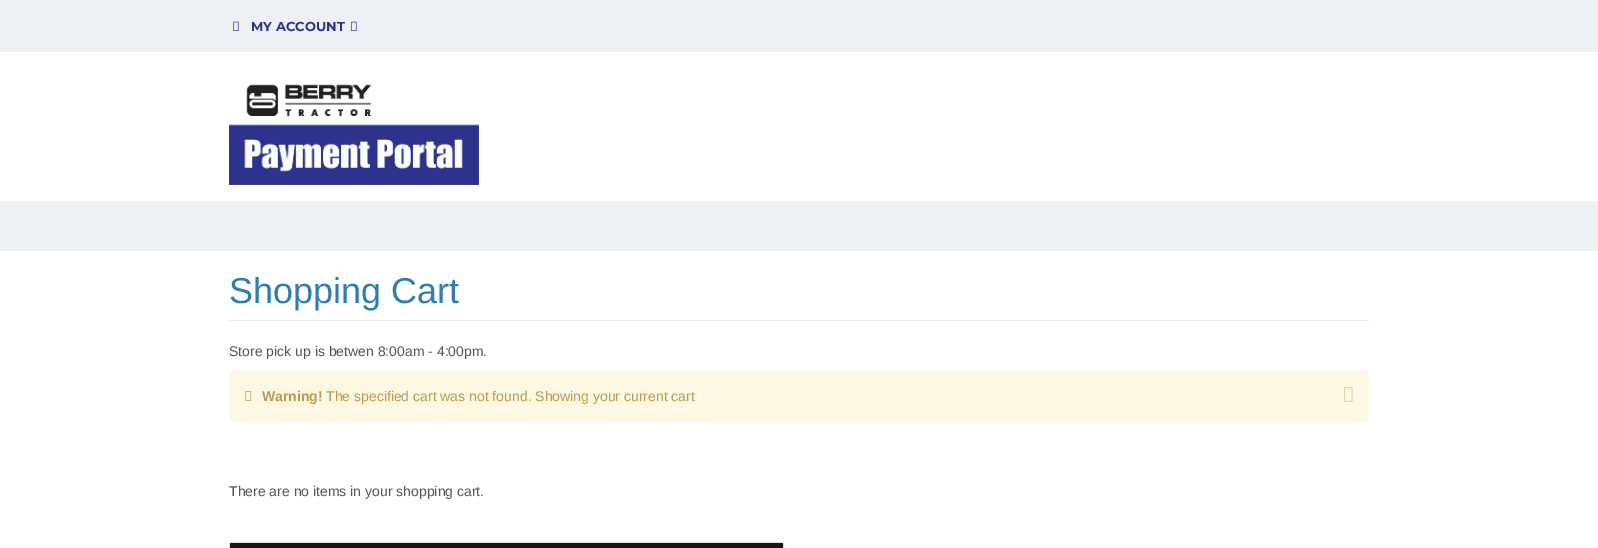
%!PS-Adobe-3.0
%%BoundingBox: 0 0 1598 548
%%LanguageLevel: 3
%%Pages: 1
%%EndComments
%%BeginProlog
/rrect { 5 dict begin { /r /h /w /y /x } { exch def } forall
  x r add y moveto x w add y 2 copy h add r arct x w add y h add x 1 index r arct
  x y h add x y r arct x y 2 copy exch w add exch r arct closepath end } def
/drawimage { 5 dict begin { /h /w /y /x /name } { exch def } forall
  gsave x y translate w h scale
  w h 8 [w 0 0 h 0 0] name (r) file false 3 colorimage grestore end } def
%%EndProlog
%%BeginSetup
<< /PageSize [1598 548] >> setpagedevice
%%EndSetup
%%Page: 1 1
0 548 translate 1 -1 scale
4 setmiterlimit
1 setgray
0 0 1598 548 rectfill
0.933 0.945 0.953 setrgbcolor
0 0 1598 52 rectfill
(images/1.raw) 233 21 6 10 drawimage
(images/1.raw) 351 21 6 10 drawimage
(images/2.raw) 229 84 250 101 drawimage
0 201 1598 50 rectfill
0.933 setgray
229 320 1140 1 rectfill
0.988 0.973 0.89 setrgbcolor
229 371 1140 50 4 rrect fill
(images/3.raw) 245 391 7 10 drawimage
(images/4.raw) 1344 387 9 15 drawimage
0.867 setgray
229.5 542.5 554 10 3.5 rrect stroke
0.086 setgray
230 543 553 5 rectfill
/Montserrat-Thin [13 0 0 -13 0 0] selectfont
0.169 0.196 0.549 setrgbcolor
251 31 moveto (MY ACCOUNT) show
/LiberationSans-Regular [36 0 0 -36 0 0] selectfont
0.192 0.494 0.675 setrgbcolor
229 303 moveto (Shopping Cart) show
/LiberationSans-Regular [14 0 0 -14 0 0] selectfont
0.333 setgray
229 356 moveto (Store pick up is betwen 8:00am - 4:00pm.) show
/LiberationSans-Bold [14 0 0 -14 0 0] selectfont
0.753 0.596 0.325 setrgbcolor
262 401 moveto (Warning!) show
/LiberationSans-Regular [14 0 0 -14 0 0] selectfont
326 401 moveto (The specified cart was not found. Showing your current cart) show
0.333 setgray
229 496 moveto (There are no items in your shopping cart.) show
showpage
%%EOF
